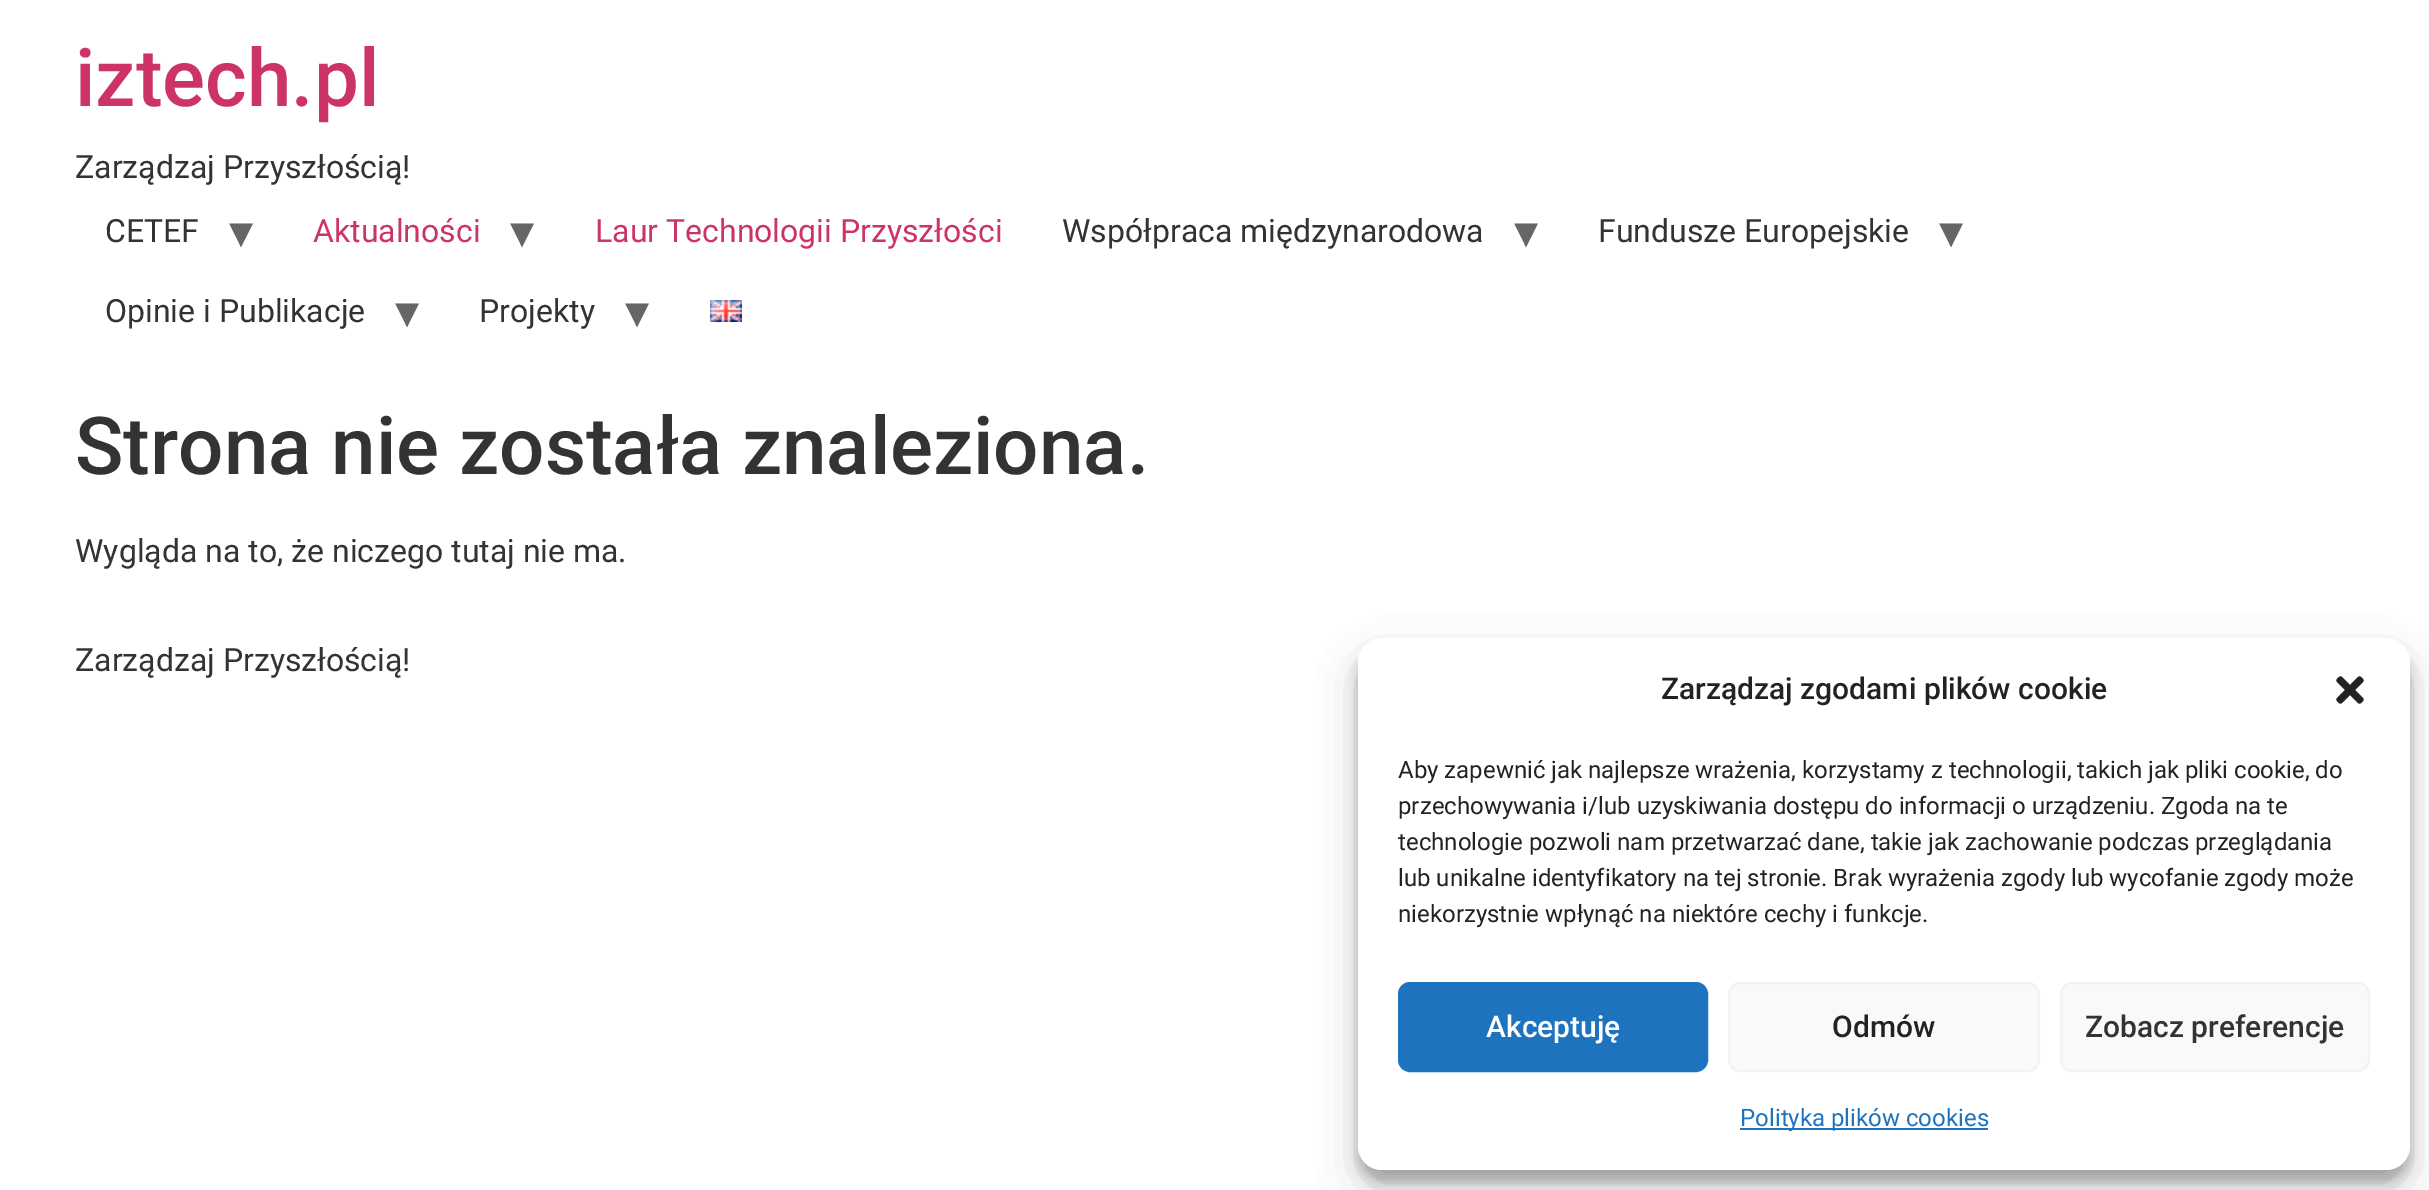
%!PS-Adobe-3.0
%%BoundingBox: 0 0 2429 1190
%%LanguageLevel: 3
%%Pages: 1
%%EndComments
%%BeginProlog
/setalpha { dup .setfillconstantalpha .setstrokeconstantalpha } def
/rrect { 5 dict begin { /r /h /w /y /x } { exch def } forall
  x r add y moveto x w add y 2 copy h add r arct x w add y h add x 1 index r arct
  x y h add x y r arct x y 2 copy exch w add exch r arct closepath end } def
/softshadow { 12 dict begin { /a /b /q /h /w /y /x } { exch def } forall gsave /was 0 def
  9 -2 -9 { dup b mul 4 div /e exch def 1 sub .425 mul 2.718 exch exp 1 add a .99 .min exch div /now exch def
    1 1 now sub 1 was sub div sub setalpha /was now def
    w h .min e 2 mul add 0 gt { x e sub y e sub w e 2 mul add h e 2 mul add
      q e add b .6 mul add w h .min 2 div e add .min 0 .max rrect fill } if } for grestore end } def
/drawimage { 5 dict begin { /h /w /y /x /name } { exch def } forall
  gsave x y translate w h scale
  w h 8 [w 0 0 h 0 0] name (r) file false 3 colorimage grestore end } def
%%EndProlog
%%BeginSetup
<< /PageSize [2429 1190] /PageUsesTransparency true >> setpagedevice
%%EndSetup
%%Page: 1 1
0 .pushpdf14devicefilter
0 1190 translate 1 -1 scale
4 setmiterlimit
1 setgray
0 0 2429 1190 rectfill
(images/1.raw) 710 300 32 22 drawimage
0 setgray
1358 650 1052 532 24 6 0.23 softshadow
1358 658 1052 532 24 20 0.19 softshadow
1 setgray
1358 638 1052 532 24 rrect fill
(images/2.raw) 2336 676 28 28 drawimage
0.118 0.451 0.745 setrgbcolor
1399 983 308 88 11 rrect gsave fill grestore
2 setlinewidth
stroke
0.976 setgray
1729 983 310 88 11 rrect gsave fill grestore
0.949 setgray
stroke
0.976 setgray
2061 983 308 88 11 rrect gsave fill grestore
0.949 setgray
stroke
0.118 0.451 0.745 setrgbcolor
1740 1128 248 2 rectfill
/Roboto-Medium [80 0 0 -80 0 0] selectfont
0.8 0.2 0.4 setrgbcolor
75 106 moveto (iztech.pl) show
/Roboto-Regular [32 0 0 -32 0 0] selectfont
0.2 setgray
75 178 moveto (Zarządzaj Przyszłością!) show
105 242 moveto (CETEF) show
/DejaVuSans-Regular [48 0 0 -48 0 0] selectfont
0.4 setgray
229 248 moveto (▾) show
/Roboto-Regular [32 0 0 -32 0 0] selectfont
0.8 0.2 0.4 setrgbcolor
313 242 moveto (Aktualności) show
/DejaVuSans-Regular [48 0 0 -48 0 0] selectfont
0.4 setgray
510 248 moveto (▾) show
/Roboto-Regular [32 0 0 -32 0 0] selectfont
0.8 0.2 0.4 setrgbcolor
595 242 moveto (Laur Technologii Przyszłości) show
0.2 setgray
1062 242 moveto (Współpraca międzynarodowa) show
/DejaVuSans-Regular [48 0 0 -48 0 0] selectfont
0.4 setgray
1514 248 moveto (▾) show
/Roboto-Regular [32 0 0 -32 0 0] selectfont
0.2 setgray
1598 242 moveto (Fundusze Europejskie) show
/DejaVuSans-Regular [48 0 0 -48 0 0] selectfont
0.4 setgray
1939 248 moveto (▾) show
/Roboto-Regular [32 0 0 -32 0 0] selectfont
0.2 setgray
105 322 moveto (Opinie i Publikacje) show
/DejaVuSans-Regular [48 0 0 -48 0 0] selectfont
0.4 setgray
395 328 moveto (▾) show
/Roboto-Regular [32 0 0 -32 0 0] selectfont
0.2 setgray
479 322 moveto (Projekty) show
/DejaVuSans-Regular [48 0 0 -48 0 0] selectfont
0.4 setgray
625 328 moveto (▾) show
/Roboto-Medium [80 0 0 -80 0 0] selectfont
0.2 setgray
75 474 moveto (Strona nie została znaleziona.) show
/Roboto-Regular [32 0 0 -32 0 0] selectfont
75 562 moveto (Wygląda na to, że niczego tutaj nie ma.) show
75 671 moveto (Zarządzaj Przyszłością!) show
/Roboto-Medium [30 0 0 -30 0 0] selectfont
0.133 setgray
1661 699 moveto (Zarządzaj zgodami plików cookie) show
/Roboto-Regular [24 0 0 -24 0 0] selectfont
1398 778 moveto (Aby zapewnić jak najlepsze wrażenia, korzystamy z technologii, takich jak pliki cookie, do) show
1398 814 moveto (przechowywania i/lub uzyskiwania dostępu do informacji o urządzeniu. Zgoda na te) show
1398 850 moveto (technologie pozwoli nam przetwarzać dane, takie jak zachowanie podczas przeglądania) show
1398 886 moveto (lub unikalne identyfikatory na tej stronie. Brak wyrażenia zgody lub wycofanie zgody może) show
1398 922 moveto (niekorzystnie wpłynąć na niektóre cechy i funkcje.) show
/Roboto-Medium [30 0 0 -30 0 0] selectfont
1 setgray
1486 1037 moveto (Akceptuję) show
0.133 setgray
1832 1037 moveto (Odmów) show
0.2 setgray
2085 1037 moveto (Zobacz preferencje) show
/Roboto-Regular [24 0 0 -24 0 0] selectfont
0.118 0.451 0.745 setrgbcolor
1740 1126 moveto (Polityka plików cookies) show
.poppdf14devicefilter showpage
%%EOF
